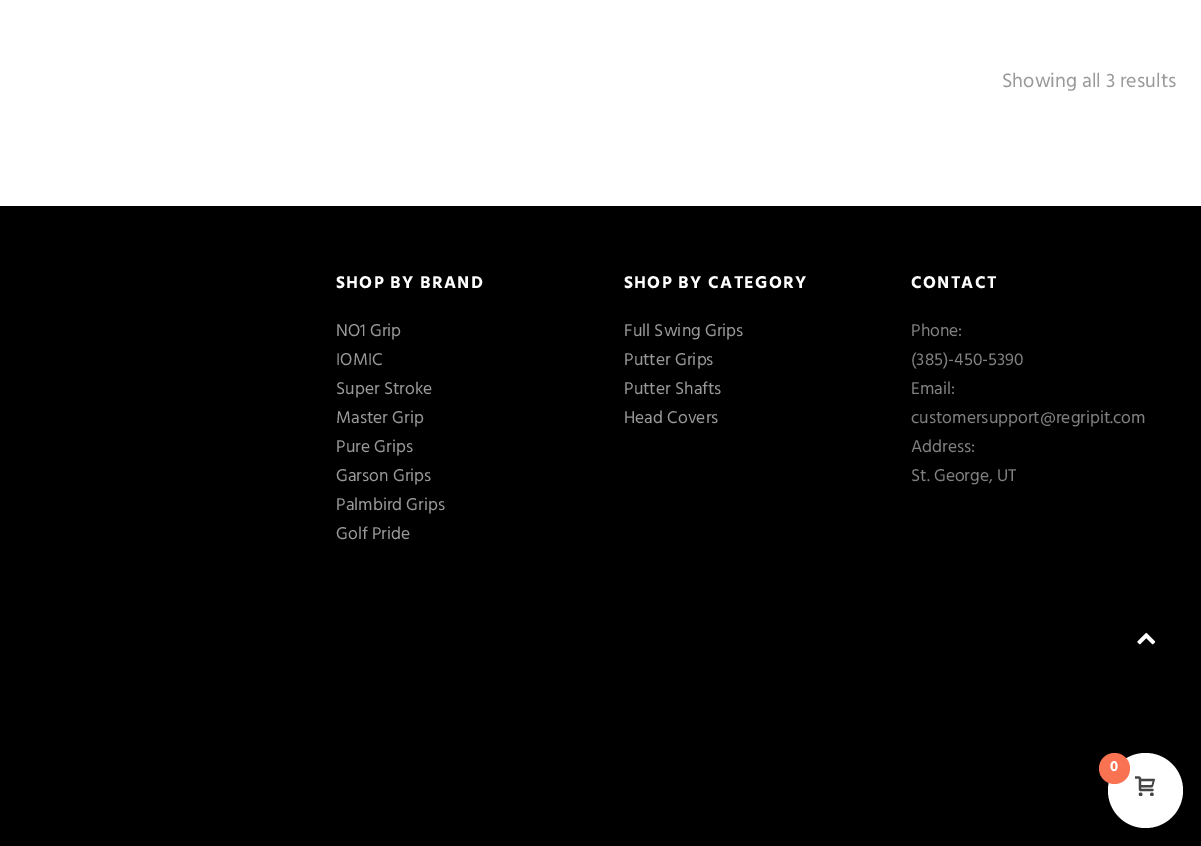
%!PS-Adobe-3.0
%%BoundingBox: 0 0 1201 846
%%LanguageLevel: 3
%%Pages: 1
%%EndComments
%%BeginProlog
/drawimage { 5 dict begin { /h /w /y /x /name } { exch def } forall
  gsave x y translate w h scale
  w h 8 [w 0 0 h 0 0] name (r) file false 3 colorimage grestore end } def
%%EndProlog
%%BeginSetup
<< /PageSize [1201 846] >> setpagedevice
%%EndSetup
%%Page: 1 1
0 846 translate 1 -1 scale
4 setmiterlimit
1 setgray
0 0 1201 846 rectfill
0 setgray
0 206 1201 640 rectfill
(images/1.raw) 1137 632 19 13 drawimage
1 setgray
newpath 1145.5 790.5 37.5 0 360 arc closepath fill
0.976 0.451 0.322 setrgbcolor
newpath 1114.5 768.5 15.5 0 360 arc closepath fill
(images/2.raw) 1135 776 20 20 drawimage
/Hind-Regular [20 0 0 -20 0 0] selectfont
0.6 setgray
1002 87 moveto (Showing all 3 results) show
/Hind-Bold [17.5 0 0 -17.5 0 0] selectfont
1 setgray
336 288 moveto 1.25 0 (SHOP BY BRAND) ashow
/Hind-Regular [17.5 0 0 -17.5 0 0] selectfont
0.6 setgray
336 336 moveto (NO1 Grip) show
336 365 moveto (IOMIC) show
336 394 moveto (Super Stroke) show
336 423 moveto (Master Grip) show
336 452 moveto (Pure Grips) show
336 481 moveto (Garson Grips) show
336 510 moveto (Palmbird Grips) show
336 539 moveto (Golf Pride) show
/Hind-Bold [17.5 0 0 -17.5 0 0] selectfont
1 setgray
624 288 moveto 1.25 0 (SHOP BY CATEGORY) ashow
/Hind-Regular [17.5 0 0 -17.5 0 0] selectfont
0.6 setgray
624 336 moveto (Full Swing Grips) show
624 365 moveto (Putter Grips) show
624 394 moveto (Putter Shafts) show
624 423 moveto (Head Covers) show
/Hind-Bold [17.5 0 0 -17.5 0 0] selectfont
1 setgray
911 288 moveto 1.25 0 (CONTACT) ashow
/Hind-Regular [17.5 0 0 -17.5 0 0] selectfont
0.502 setgray
911 336 moveto (Phone:) show
911 365 moveto (\(385\)-450-5390) show
911 394 moveto (Email:) show
911 423 moveto (customersupport@regripit.com) show
911 452 moveto (Address:) show
911 481 moveto (St. George, UT) show
/Hind-Bold [15 0 0 -15 0 0] selectfont
1 setgray
1110 771 moveto (0) show
showpage
%%EOF
